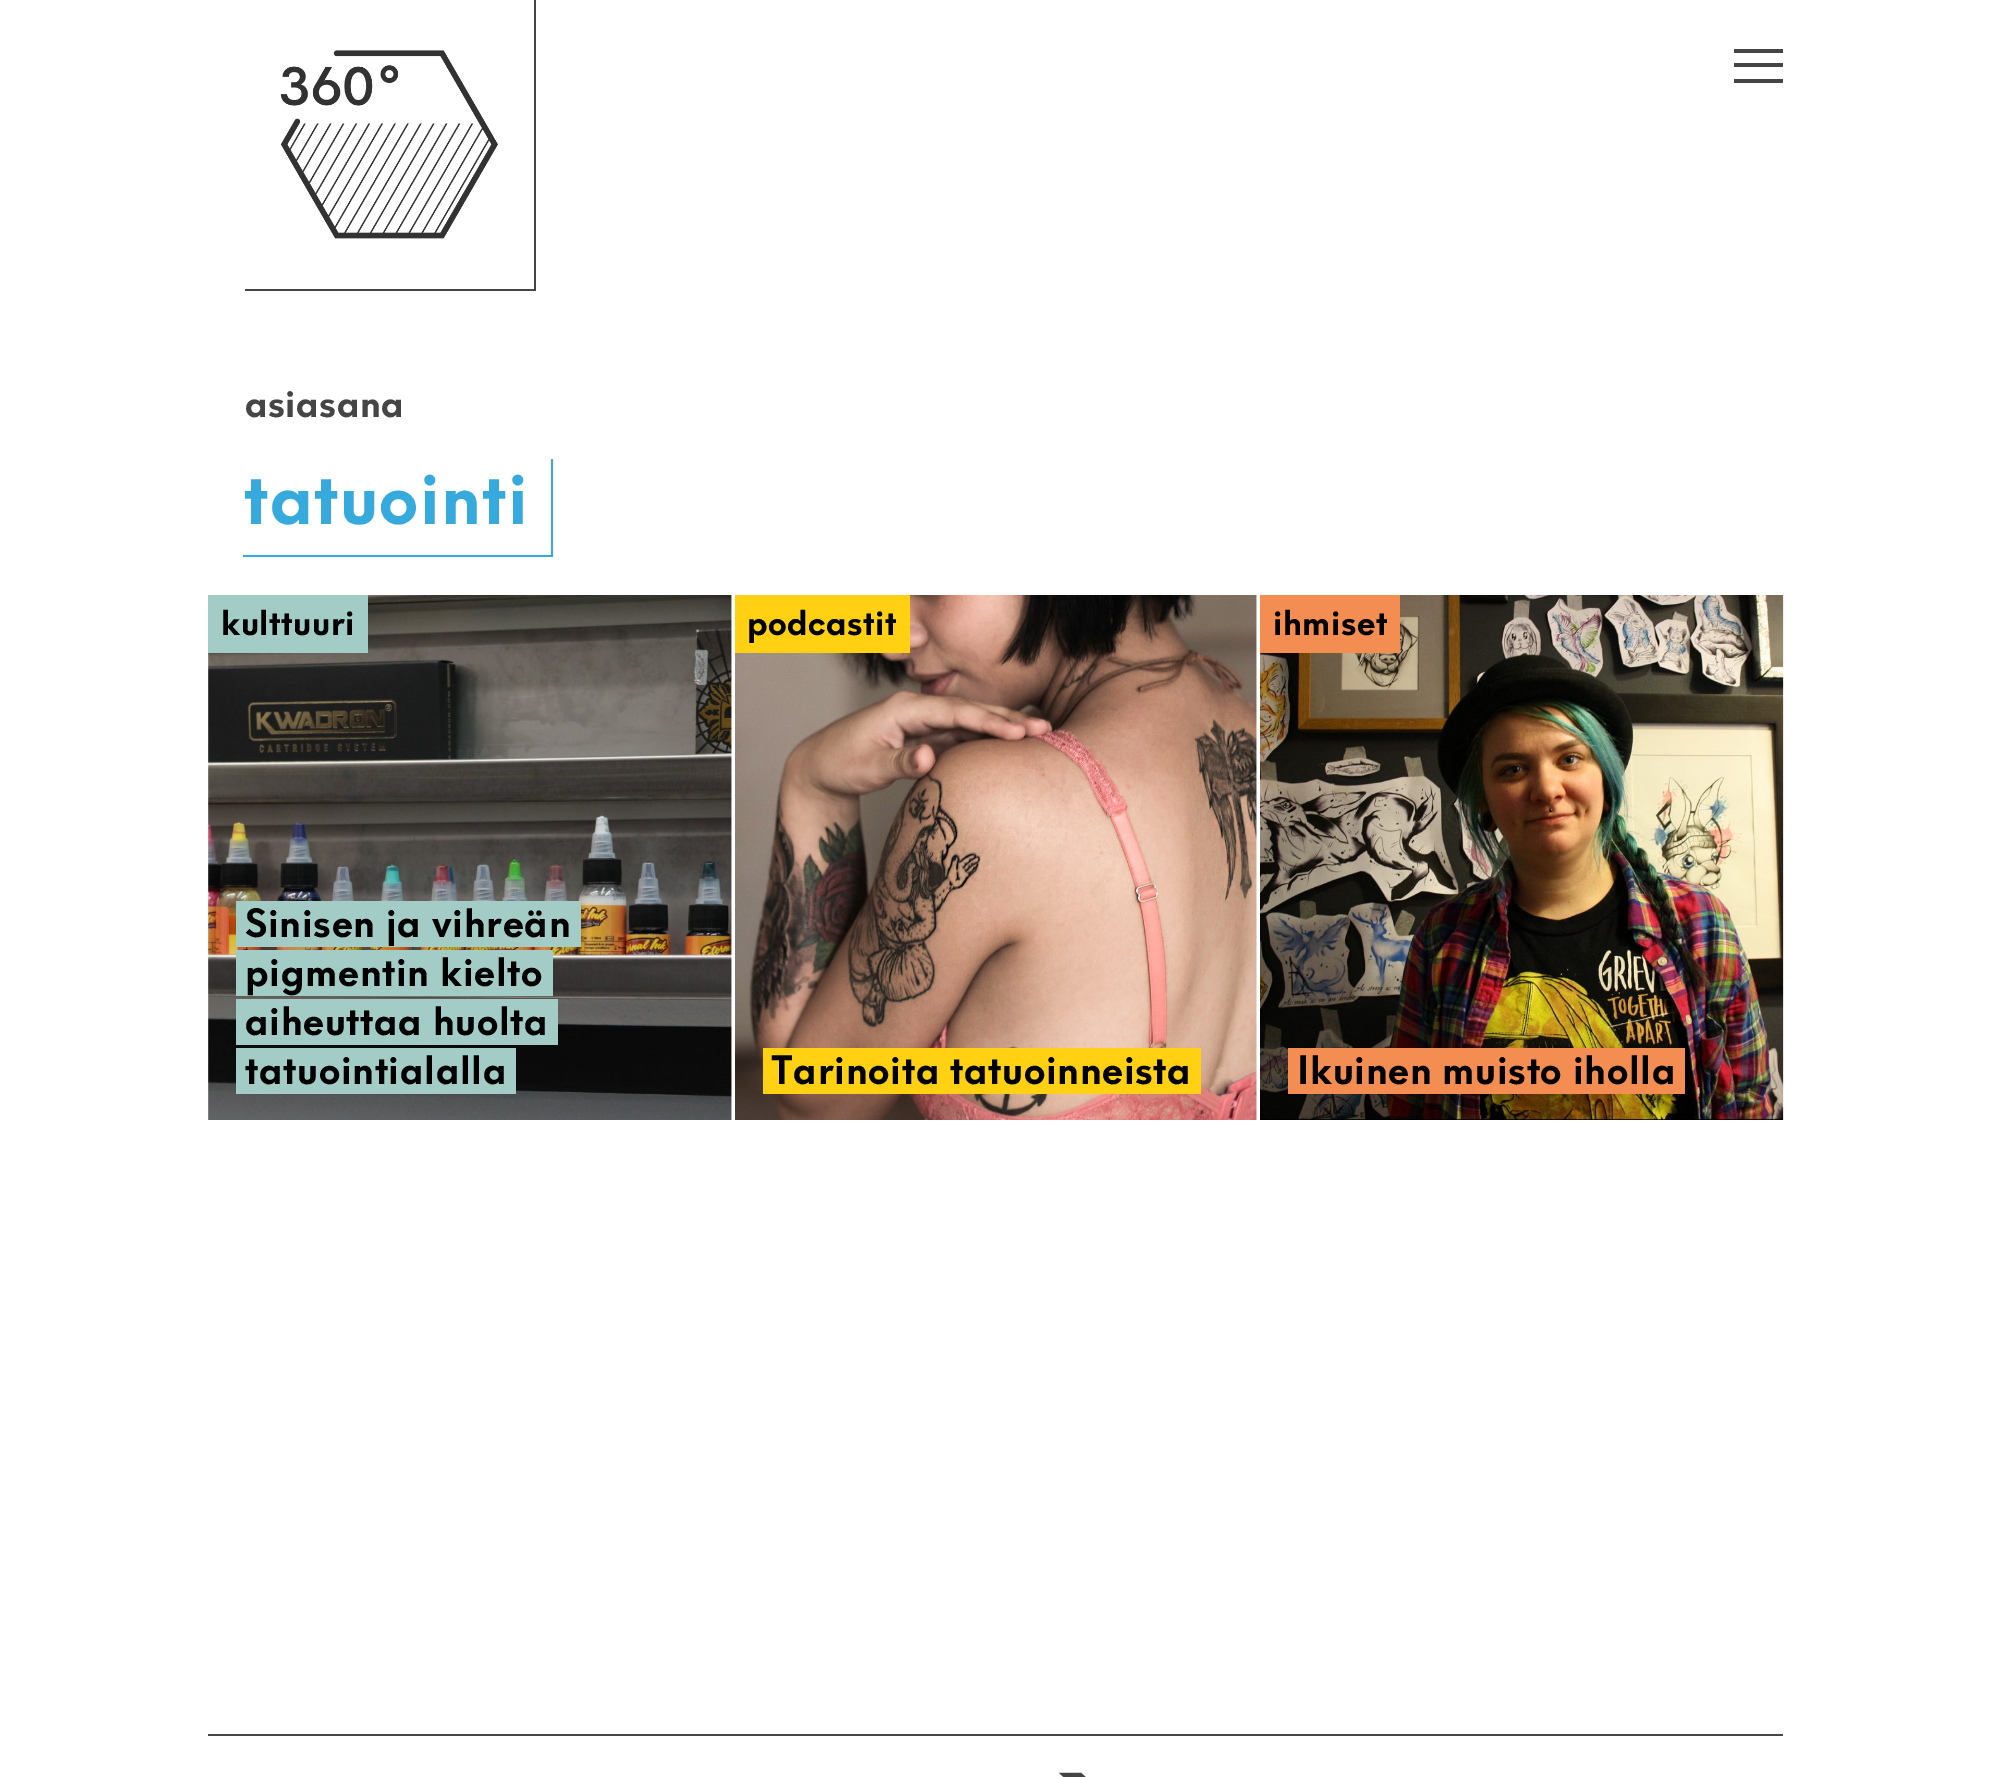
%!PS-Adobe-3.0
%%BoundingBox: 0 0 1990 1777
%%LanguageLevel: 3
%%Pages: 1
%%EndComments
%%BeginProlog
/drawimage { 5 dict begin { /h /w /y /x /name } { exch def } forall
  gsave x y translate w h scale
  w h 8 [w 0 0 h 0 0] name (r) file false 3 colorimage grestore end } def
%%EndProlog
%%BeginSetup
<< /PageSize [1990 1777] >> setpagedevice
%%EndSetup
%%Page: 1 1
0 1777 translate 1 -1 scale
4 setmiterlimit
1 setgray
0 0 1990 1777 rectfill
0.271 setgray
534 0 2 291 rectfill
245 289 291 2 rectfill
(images/1.raw) 280 50 218 189 drawimage
1734 49 49 4 rectfill
1734 63 49 4 rectfill
1734 79 49 4 rectfill
0.216 0.667 0.867 setrgbcolor
551 459 2 98 rectfill
243 555 310 2 rectfill
(images/2.raw) 208 595 524 525 drawimage
(images/3.raw) 208 595 524 525 drawimage
0.639 0.8 0.776 setrgbcolor
208 595 160 58 rectfill
newpath 254 901 moveto 572 901 lineto 572 947 lineto 254 947 lineto 581 947 lineto 581 901 lineto closepath fill
newpath 236 901 moveto 236 947 lineto 564 947 lineto 245 947 lineto 245 901 lineto 564 901 lineto closepath fill
245 901 327 46 rectfill
newpath 254 950 moveto 544 950 lineto 544 996 lineto 254 996 lineto 553 996 lineto 553 950 lineto closepath fill
newpath 236 950 moveto 236 996 lineto 536 996 lineto 245 996 lineto 245 950 lineto 536 950 lineto closepath fill
245 950 299 46 rectfill
newpath 254 999 moveto 550 999 lineto 550 1045 lineto 254 1045 lineto 558 1045 lineto 558 999 lineto closepath fill
newpath 236 999 moveto 236 1045 lineto 541 1045 lineto 245 1045 lineto 245 999 lineto 541 999 lineto closepath fill
245 999 305 46 rectfill
newpath 254 1048 moveto 508 1048 lineto 508 1094 lineto 254 1094 lineto 516 1094 lineto 516 1048 lineto closepath fill
newpath 236 1048 moveto 236 1094 lineto 499 1094 lineto 245 1094 lineto 245 1048 lineto 499 1048 lineto closepath fill
245 1048 263 46 rectfill
(images/5.raw) 1256 595 1 525 drawimage
(images/4.raw) 735 595 522 525 drawimage
1 0.82 0.071 setrgbcolor
735 595 175 58 rectfill
newpath 781 1048 moveto 1192 1048 lineto 1192 1094 lineto 781 1094 lineto 1201 1094 lineto 1201 1048 lineto closepath fill
newpath 763 1048 moveto 763 1094 lineto 1183 1094 lineto 772 1094 lineto 772 1048 lineto 1183 1048 lineto closepath fill
772 1048 420 46 rectfill
(images/7.raw) 1783 595 1 525 drawimage
(images/6.raw) 1260 595 524 525 drawimage
0.953 0.553 0.318 setrgbcolor
1260 595 140 58 rectfill
newpath 1306 1048 moveto 1676 1048 lineto 1676 1094 lineto 1306 1094 lineto 1685 1094 lineto 1685 1048 lineto closepath fill
newpath 1288 1048 moveto 1288 1094 lineto 1668 1094 lineto 1297 1094 lineto 1297 1048 lineto 1668 1048 lineto closepath fill
1297 1048 379 46 rectfill
0.271 setgray
208 1734 1575 2 rectfill
(images/8.raw) 1058 1772 28 5 drawimage
/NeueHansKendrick-Bold [36.75 0 0 -36.75 0 0] selectfont
245 417 moveto 0.5 0 (asiasana) ashow
/NeueHansKendrick-Bold [70 0 0 -70 0 0] selectfont
0.216 0.667 0.867 setrgbcolor
244 524 moveto 1.5 0 (tatuointi) ashow
/NeueHansKendrick-Bold [33.5 0 0 -33.5 0 0] selectfont
0 setgray
221 635 moveto 0.5 0 (kulttuuri) ashow
/NeueHansKendrick-Bold [38.25 0 0 -38.25 0 0] selectfont
245 937 moveto 0.75 0 (Sinisen ja vihreän) ashow
245 986 moveto 0.75 0 (pigmentin kielto) ashow
245 1035 moveto 0.75 0 (aiheuttaa huolta) ashow
245 1084 moveto 0.75 0 (tatuointialalla) ashow
/NeueHansKendrick-Bold [33.5 0 0 -33.5 0 0] selectfont
747 635 moveto 0.5 0 (podcastit) ashow
/NeueHansKendrick-Bold [38.25 0 0 -38.25 0 0] selectfont
771 1084 moveto 0.75 0 (Tarinoita tatuoinneista) ashow
/NeueHansKendrick-Bold [33.5 0 0 -33.5 0 0] selectfont
1273 635 moveto 0.5 0 (ihmiset) ashow
/NeueHansKendrick-Bold [38.25 0 0 -38.25 0 0] selectfont
1297 1084 moveto 0.75 0 (Ikuinen muisto iholla) ashow
showpage
%%EOF
